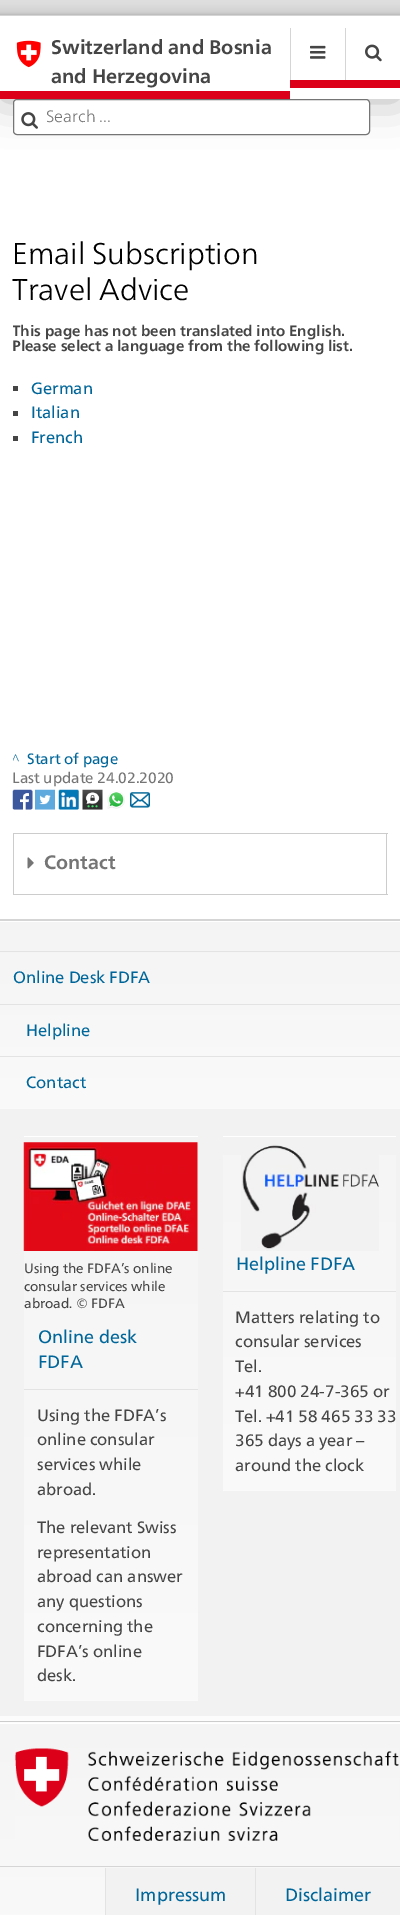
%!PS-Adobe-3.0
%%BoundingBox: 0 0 400 1915
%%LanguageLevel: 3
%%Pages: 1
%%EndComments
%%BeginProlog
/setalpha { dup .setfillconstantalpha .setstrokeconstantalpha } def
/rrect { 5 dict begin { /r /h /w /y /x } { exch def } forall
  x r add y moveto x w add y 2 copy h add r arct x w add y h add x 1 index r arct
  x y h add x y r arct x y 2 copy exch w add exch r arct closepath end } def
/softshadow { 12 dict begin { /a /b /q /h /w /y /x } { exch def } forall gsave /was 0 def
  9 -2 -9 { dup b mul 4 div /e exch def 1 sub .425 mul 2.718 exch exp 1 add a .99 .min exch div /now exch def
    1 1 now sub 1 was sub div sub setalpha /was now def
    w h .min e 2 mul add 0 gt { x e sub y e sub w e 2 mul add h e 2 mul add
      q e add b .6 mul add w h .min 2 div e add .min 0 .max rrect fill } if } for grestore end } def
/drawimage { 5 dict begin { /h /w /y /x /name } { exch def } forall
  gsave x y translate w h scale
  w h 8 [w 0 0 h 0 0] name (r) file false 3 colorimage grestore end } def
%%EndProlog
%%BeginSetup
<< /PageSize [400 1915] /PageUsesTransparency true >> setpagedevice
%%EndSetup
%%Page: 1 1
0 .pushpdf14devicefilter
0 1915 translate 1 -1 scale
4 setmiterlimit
1 setgray
0 0 400 1915 rectfill
0 setgray
0 16 400 83 0 22.5 0.3 softshadow
gsave newpath 0 0 moveto 400 0 lineto 400 15 lineto 0 15 lineto closepath clip newpath
<< /ShadingType 2 /ColorSpace /DeviceRGB /Coords [200 -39 200 15] /Extend [true true] /Function << /FunctionType 3 /Domain [0 1] /Functions [<< /FunctionType 2 /Domain [0 1] /C0 [0.894 0.894 0.894] /C1 [0.886 0.886 0.886] /N 1 >> << /FunctionType 2 /Domain [0 1] /C0 [0.886 0.886 0.886] /C1 [0.867 0.867 0.867] /N 1 >> << /FunctionType 2 /Domain [0 1] /C0 [0.867 0.867 0.867] /C1 [0.835 0.835 0.835] /N 1 >> << /FunctionType 2 /Domain [0 1] /C0 [0.835 0.835 0.835] /C1 [0.812 0.812 0.812] /N 1 >> << /FunctionType 2 /Domain [0 1] /C0 [0.812 0.812 0.812] /C1 [0.745 0.745 0.745] /N 1 >>] /Bounds [0.39 0.79 0.91 0.95] /Encode [0 1 0 1 0 1 0 1 0 1] >> >> shfill grestore
0.835 setgray
0 15 400 1 rectfill
1 setgray
0 16 400 83 rectfill
0.863 0 0.094 setrgbcolor
290 80 110 8 rectfill
0.835 setgray
290 28 1 52 rectfill
(images/1.raw) 310 45 16 14 drawimage
0.863 0 0.094 setrgbcolor
0 91 290 8 rectfill
(images/2.raw) 16 40 25 28 drawimage
0.835 setgray
345 28 1 52 rectfill
(images/3.raw) 365 44 17 18 drawimage
1 setgray
13.5 99.5 356 35 3.5 rrect gsave fill grestore
0.459 setgray
stroke
(images/4.raw) 21 112 17 17 drawimage
0.271 setgray
13 386 5 5 rectfill
13 411 5 5 rectfill
13 436 5 5 rectfill
(images/5.raw) 12 789 21 21 drawimage
(images/6.raw) 35 789 20 21 drawimage
(images/7.raw) 58 789 21 21 drawimage
(images/8.raw) 82 789 21 21 drawimage
(images/9.raw) 107 791 18 18 drawimage
(images/10.raw) 130 792 20 16 drawimage
0.8 setgray
13 894 375 1 rectfill
13 833 375 1 rectfill
386 833 1 61 rectfill
13 833 1 61 rectfill
(images/11.raw) 27 857 7 12 drawimage
0.949 setgray
0 1109 400 607 rectfill
0.835 setgray
0 919 400 2 rectfill
gsave newpath 0 922 moveto 400 922 lineto 400 1109 lineto 0 1109 lineto closepath clip newpath
<< /ShadingType 2 /ColorSpace /DeviceRGB /Coords [200 921 200 1109] /Extend [true true] /Function << /FunctionType 2 /Domain [0 1] /C0 [0.957 0.957 0.957] /C1 [0.98 0.98 0.98] /N 1 >> >> shfill grestore
0.89 setgray
0 951 400 1 rectfill
0 1004 400 1 rectfill
0 1056 400 1 rectfill
gsave newpath 24 1172 moveto 198 1172 lineto 198 1701 lineto 24 1701 lineto closepath clip newpath
<< /ShadingType 2 /ColorSpace /DeviceRGB /Coords [111 1124 111 1701] /Extend [true true] /Function << /FunctionType 2 /Domain [0 1] /C0 [0.957 0.957 0.957] /C1 [0.98 0.98 0.98] /N 1 >> >> shfill grestore
(images/12.raw) 23 1142 175 109 drawimage
1 setgray
24 1136 174 1 rectfill
0.89 setgray
24 1389 174 1 rectfill
gsave newpath 223 1155 moveto 396 1155 lineto 396 1491 lineto 223 1491 lineto closepath clip newpath
<< /ShadingType 2 /ColorSpace /DeviceRGB /Coords [309 1124 309 1491] /Extend [true true] /Function << /FunctionType 2 /Domain [0 1] /C0 [0.957 0.957 0.957] /C1 [0.98 0.98 0.98] /N 1 >> >> shfill grestore
(images/13.raw) 241 1144 138 107 drawimage
1 setgray
223 1136 173 1 rectfill
0.89 setgray
223 1291 173 1 rectfill
0.988 setgray
0 1716 400 5 rectfill
0 1722 400 1 rectfill
0.8 setgray
0 1721 400 1 rectfill
gsave newpath 0 1724 moveto 400 1724 lineto 400 1915 lineto 0 1915 lineto closepath clip newpath
<< /ShadingType 2 /ColorSpace /DeviceRGB /Coords [200 1723 200 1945] /Extend [true true] /Function << /FunctionType 2 /Domain [0 1] /C0 [0.957 0.957 0.957] /C1 [0.98 0.98 0.98] /N 1 >> >> shfill grestore
0.835 setgray
0 1866 400 1 rectfill
(images/14.raw) 15 1748 384 93 drawimage
0.949 setgray
106 1868 149 47 rectfill
0.89 setgray
105 1868 1 47 rectfill
0.949 setgray
256 1868 144 47 rectfill
0.89 setgray
255 1868 1 47 rectfill
/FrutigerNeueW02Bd-Bold [19.75 0 0 -19.75 0 0] selectfont
0.271 setgray
51 54 moveto (Switzerland and Bosnia) show
51 83 moveto (and Herzegovina) show
/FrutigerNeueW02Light-Light [16.5 0 0 -16.5 0 0] selectfont
0.459 setgray
46 122 moveto (Search ...) show
/FrutigerNeueW02Light-Light [30 0 0 -30 0 0] selectfont
0 setgray
12 264 moveto (Email Subscription) show
12 300 moveto (Travel Advice) show
gsave
13 309 375 141 rectclip
/FrutigerNeueW02Bd-Bold [15 0 0 -15 0 0] selectfont
0.271 setgray
12 336 moveto (This page has not been translated into English.) show
grestore
/FrutigerNeueW02Bd-Bold [15 0 0 -15 0 0] selectfont
0.271 setgray
12 351 moveto (Please select a language from the following list.) show
/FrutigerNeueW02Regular-Regular [16.5 0 0 -16.5 0 0] selectfont
0 0.4 0.6 setrgbcolor
31 394 moveto (German) show
31 418 moveto (Italian) show
31 443 moveto (French) show
gsave
13 195 375 615 rectclip
/LiberationSerif-Regular [15 0 0 -15 0 0] selectfont
12 764 moveto (^) show
grestore
/FrutigerNeueW02Regular-Regular [15 0 0 -15 0 0] selectfont
27 764 moveto (Start of page) show
0.459 setgray
12 783 moveto (Last update 24.02.2020) show
/FrutigerNeueW02Bd-Bold [19.5 0 0 -19.5 0 0] selectfont
44 869 moveto (Contact) show
/FrutigerNeueW02Regular-Regular [16.5 0 0 -16.5 0 0] selectfont
0 0.4 0.6 setrgbcolor
13 983 moveto (Online Desk FDFA) show
26 1036 moveto (Helpline) show
26 1088 moveto (Contact) show
/FrutigerNeueW02Regular-Regular [13.5 0 0 -13.5 0 0] selectfont
0.271 setgray
24 1273 moveto (Using the FDFA’s online) show
24 1291 moveto (consular services while) show
24 1308 moveto (abroad. © FDFA) show
/FrutigerNeueW02Regular-Regular [18 0 0 -18 0 0] selectfont
0 0.4 0.6 setrgbcolor
38 1343 moveto (Online desk) show
38 1368 moveto (FDFA) show
/FrutigerNeueW02Regular-Regular [16.5 0 0 -16.5 0 0] selectfont
0.271 setgray
37 1421 moveto (Using the FDFA’s) show
37 1445 moveto (online consular) show
37 1470 moveto (services while) show
37 1495 moveto (abroad.) show
37 1533 moveto (The relevant Swiss) show
37 1558 moveto (representation) show
37 1582 moveto (abroad can answer) show
37 1607 moveto (any questions) show
37 1632 moveto (concerning the) show
37 1657 moveto (FDFA’s online) show
37 1681 moveto (desk.) show
/FrutigerNeueW02Regular-Regular [18 0 0 -18 0 0] selectfont
0 0.4 0.6 setrgbcolor
236 1270 moveto (Helpline FDFA) show
/FrutigerNeueW02Regular-Regular [16.5 0 0 -16.5 0 0] selectfont
0.271 setgray
235 1323 moveto (Matters relating to) show
235 1347 moveto (consular services) show
235 1372 moveto (Tel.) show
235 1397 moveto (+41 800 24-7-365 or) show
235 1422 moveto (Tel. +41 58 465 33 33) show
235 1446 moveto (365 days a year –) show
235 1471 moveto (around the clock) show
/FrutigerNeueW02Regular-Regular [18 0 0 -18 0 0] selectfont
0 0.4 0.6 setrgbcolor
135 1901 moveto (Impressum) show
285 1901 moveto (Disclaimer) show
.poppdf14devicefilter showpage
%%EOF
